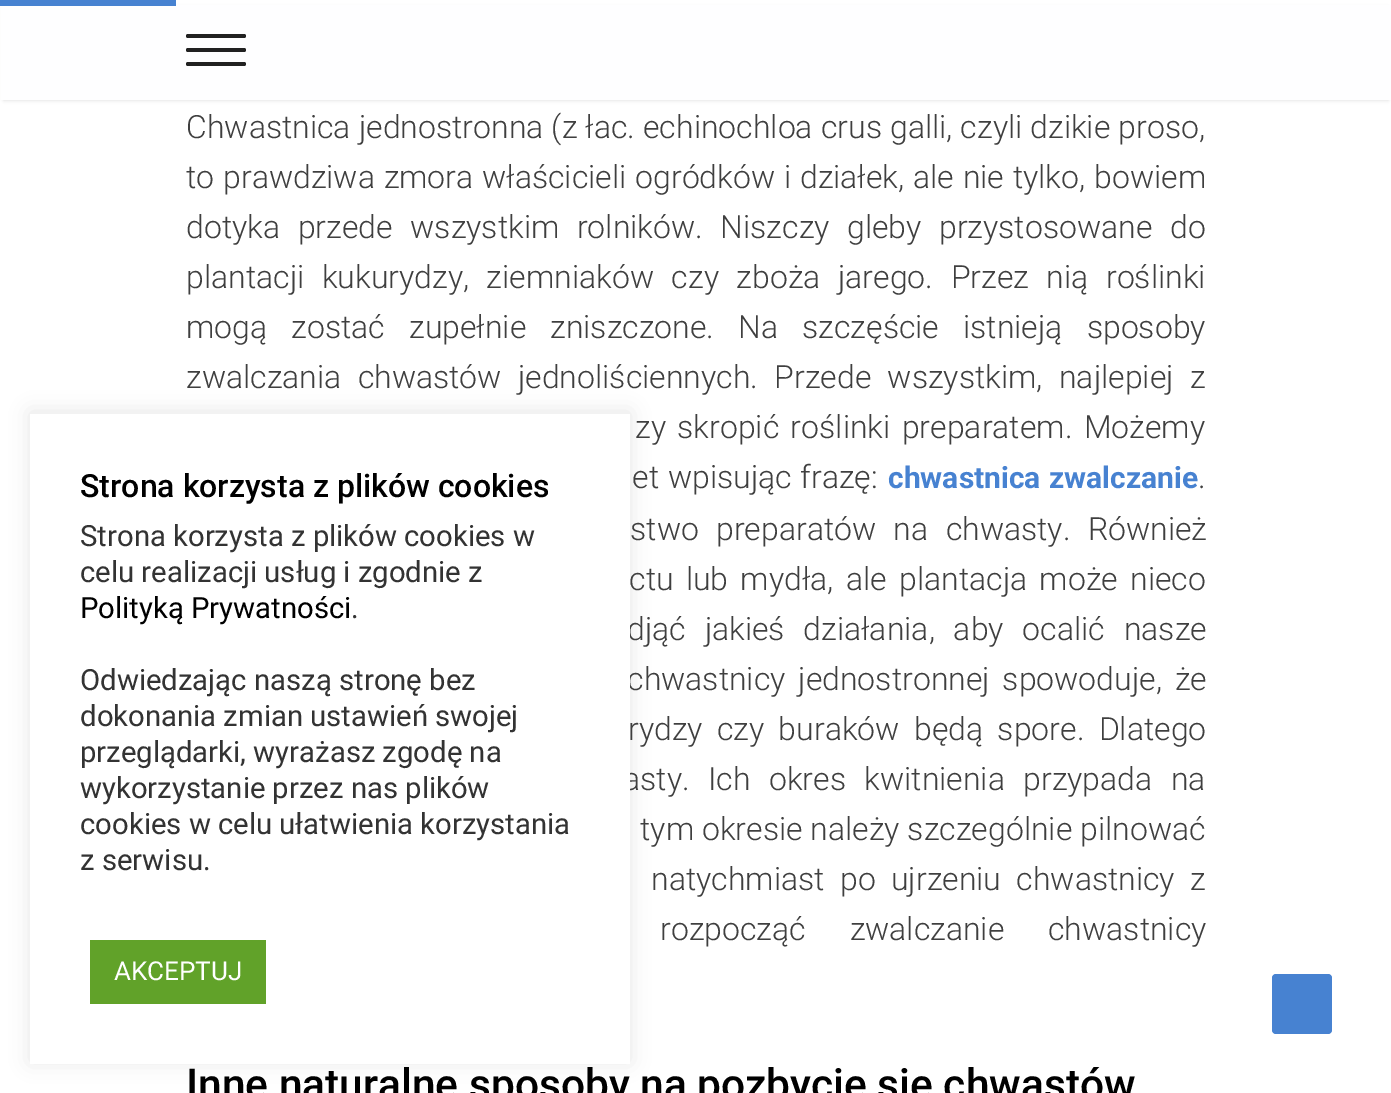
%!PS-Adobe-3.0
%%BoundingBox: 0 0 1391 1093
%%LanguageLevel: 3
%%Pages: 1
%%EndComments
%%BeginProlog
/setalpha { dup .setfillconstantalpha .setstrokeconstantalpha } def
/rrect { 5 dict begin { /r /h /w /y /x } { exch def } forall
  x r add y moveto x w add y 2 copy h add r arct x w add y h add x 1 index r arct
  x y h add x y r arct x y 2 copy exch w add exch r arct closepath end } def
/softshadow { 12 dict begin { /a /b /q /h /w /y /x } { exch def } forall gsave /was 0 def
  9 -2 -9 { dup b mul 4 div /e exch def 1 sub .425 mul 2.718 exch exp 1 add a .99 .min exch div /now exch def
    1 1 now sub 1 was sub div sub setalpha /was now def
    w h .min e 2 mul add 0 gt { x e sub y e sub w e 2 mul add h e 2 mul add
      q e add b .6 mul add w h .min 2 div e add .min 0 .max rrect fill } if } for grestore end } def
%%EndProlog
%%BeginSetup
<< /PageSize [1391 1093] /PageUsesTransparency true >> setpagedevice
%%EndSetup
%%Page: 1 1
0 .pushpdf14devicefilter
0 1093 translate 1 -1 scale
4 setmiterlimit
1 setgray
0 0 1391 1093 rectfill
0 setgray
4 8 1384 92 0 2 0.15 softshadow
0.996 0.996 1 setrgbcolor
1 5 1390 95 rectfill
0.278 0.51 0.82 setrgbcolor
0 0 176 6 rectfill
0.129 setgray
186 48 60 4 2 rrect fill
186 34 60 4 2 rrect fill
186 62 60 4 2 rrect fill
0.675 0.671 0.671 setrgbcolor
30 412 600 650 0 10 0.3 softshadow
0.278 0.51 0.82 setrgbcolor
1272 974 60 60 4 rrect fill
/Roboto-Light [32 0 0 -32 0 0] selectfont
0.247 setgray
186 138 moveto 0.25 0 32 (Chwastnica jednostronna \(z łac. echinochloa crus galli, czyli dzikie proso,) widthshow
186 188 moveto 1 0 32 (to prawdziwa zmora właścicieli ogródków i działek, ale nie tylko, bowiem) widthshow
186 238 moveto 9.75 0 32 (dotyka przede wszystkim rolników. Niszczy gleby przystosowane do) widthshow
186 288 moveto 9.75 0 32 (plantacji kukurydzy, ziemniaków czy zboża jarego. Przez nią roślinki) widthshow
186 338 moveto 16.25 0 32 (mogą zostać zupełnie zniszczone. Na szczęście istnieją sposoby) widthshow
186 388 moveto 8.5 0 32 (zwalczania chwastów jednoliściennych. Przede wszystkim, najlepiej z) widthshow
635 438 moveto 3.5 0 32 (zy skropić roślinki preparatem. Możemy) widthshow
632 488 moveto 1 0 32 (et wpisując frazę:) widthshow
/Roboto-Bold [30 0 0 -30 0 0] selectfont
0.278 0.51 0.82 setrgbcolor
888 488 moveto 1 0 32 (chwastnica zwalczanie) widthshow
/Roboto-Light [32 0 0 -32 0 0] selectfont
0.247 setgray
1198 488 moveto (.) show
630 540 moveto 9.5 0 32 (stwo preparatów na chwasty. Również) widthshow
629 590 moveto 4.5 0 32 (ctu lub mydła, ale plantacja może nieco) widthshow
627 640 moveto 11 0 32 (djąć jakieś działania, aby ocalić nasze) widthshow
627 690 moveto 5 0 32 (chwastnicy jednostronnej spowoduje, że) widthshow
628 740 moveto 6.5 0 32 (rydzy czy buraków będą spore. Dlatego) widthshow
623 790 moveto 10.5 0 32 (asty. Ich okres kwitnienia przypada na) widthshow
640 840 moveto (tym okresie należy szczególnie pilnować) show
651 890 moveto 7.5 0 32 (natychmiast po ujrzeniu chwastnicy z) widthshow
660 940 moveto 36 0 32 (rozpocząć zwalczanie chwastnicy) widthshow
/Roboto-Medium [42.5 0 0 -42.5 0 0] selectfont
0 setgray
186 1099 moveto (Inne naturalne sposoby na pozbycie się chwastów) show
1 setgray
30 414 600 650 rectfill
/Roboto-Medium [32 0 0 -32 0 0] selectfont
0 setgray
80 497 moveto (Strona korzysta z plików cookies) show
/Roboto-Regular [29.3 0 0 -29.3 0 0] selectfont
0.2 setgray
80 546 moveto (Strona korzysta z plików cookies w) show
80 582 moveto (celu realizacji usług i zgodnie z) show
0 setgray
80 618 moveto (Polityką Prywatności) show
0.2 setgray
351 618 moveto (.) show
80 690 moveto (Odwiedzając naszą stronę bez) show
80 726 moveto (dokonania zmian ustawień swojej) show
80 762 moveto (przeglądarki, wyrażasz zgodę na) show
80 798 moveto (wykorzystanie przez nas plików) show
80 834 moveto (cookies w celu ułatwienia korzystania) show
80 870 moveto (z serwisu.) show
0.38 0.635 0.161 setrgbcolor
90 940 176 64 rectfill
/Roboto-Regular [26 0 0 -26 0 0] selectfont
1 setgray
114 980 moveto (AKCEPTUJ) show
.poppdf14devicefilter showpage
%%EOF
